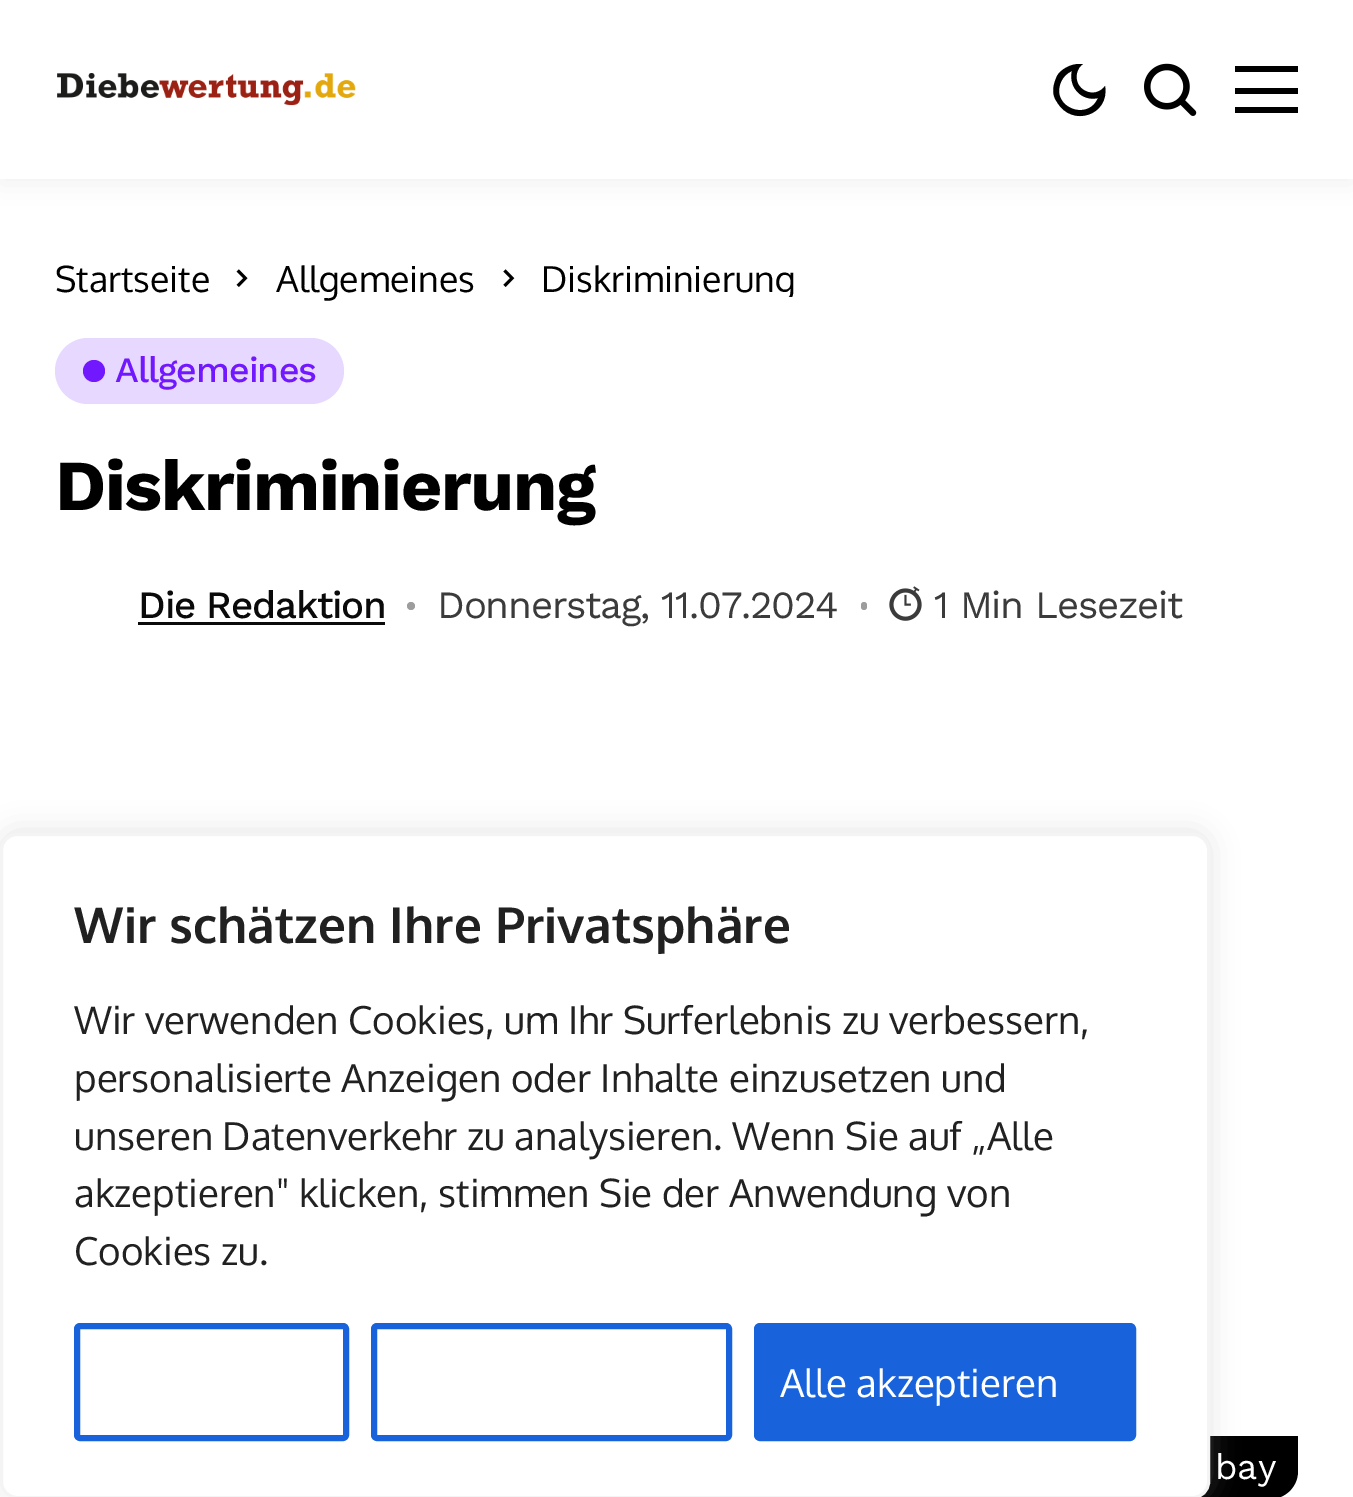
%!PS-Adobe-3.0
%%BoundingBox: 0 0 1353 1497
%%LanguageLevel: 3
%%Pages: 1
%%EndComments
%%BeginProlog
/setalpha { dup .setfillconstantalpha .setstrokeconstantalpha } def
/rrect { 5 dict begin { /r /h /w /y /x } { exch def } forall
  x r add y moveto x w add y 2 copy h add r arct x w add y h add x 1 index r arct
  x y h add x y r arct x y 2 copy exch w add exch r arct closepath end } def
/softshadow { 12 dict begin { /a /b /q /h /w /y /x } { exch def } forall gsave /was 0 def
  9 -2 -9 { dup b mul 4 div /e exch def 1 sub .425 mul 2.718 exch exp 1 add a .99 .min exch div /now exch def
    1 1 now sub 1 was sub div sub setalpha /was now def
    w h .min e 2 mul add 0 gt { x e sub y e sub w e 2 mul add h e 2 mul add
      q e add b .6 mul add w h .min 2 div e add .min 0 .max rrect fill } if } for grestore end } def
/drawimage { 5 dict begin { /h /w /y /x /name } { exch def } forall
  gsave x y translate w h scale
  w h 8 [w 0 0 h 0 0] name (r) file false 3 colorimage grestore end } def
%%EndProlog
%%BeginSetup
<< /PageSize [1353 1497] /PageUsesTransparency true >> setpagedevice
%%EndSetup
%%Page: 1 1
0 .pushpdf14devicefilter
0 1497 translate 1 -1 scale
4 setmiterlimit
1 setgray
0 0 1353 1497 rectfill
0 setgray
0 6 1353 178 0 12.5 0.06 softshadow
1 setgray
0 0 1353 179 rectfill
(images/1.raw) 57 73 299 33 drawimage
0 setgray
newpath 1079 64 moveto 1083 64 lineto 1080 66 1078 69 1077 73 curveto 1073 90 1095 100 1105 86 curveto 1110 115 1072 128 1057 102 curveto 1051 94 1053 85 1057 76 curveto 1061 69 1071 64 1079 64 curveto closepath 1072 71 moveto 1067 73 1063 77 1061 82 curveto 1050 107 1088 122 1098 98 curveto 1082 102 1068 87 1072 71 curveto closepath eofill
(images/2.raw) 1144 63 53 53 drawimage
1235 66 63 6 rectfill
1235 88 63 6 rectfill
1235 107 63 6 rectfill
(images/3.raw) 236 269 12 18 drawimage
(images/4.raw) 503 269 12 18 drawimage
0.906 0.847 1 setrgbcolor
55 338 289 66 33 rrect fill
0.443 0.094 1 setrgbcolor
newpath 94 371 11 0 360 arc closepath fill
0.039 setgray
138 622 247 3 rectfill
0.616 setgray
newpath 411 606 4 0 360 arc closepath fill
861 602 6 8 3 rrect fill
(images/5.raw) 889 586 33 35 drawimage
0 setgray
newpath 721 1436 moveto 1298 1436 lineto 1298 1471 lineto 1298 1486.5 1285.5 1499 1270 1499 curveto 721 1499 lineto closepath fill
0.675 0.671 0.671 setrgbcolor
0 831 1210 665 17 14 0.3 softshadow
1 setgray
1.5 834.5 1207 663 15.5 rrect gsave fill grestore
0.957 setgray
3 setlinewidth
stroke
0.094 0.388 0.863 setrgbcolor
6 setlinewidth
77 1326 269 112 3 rrect stroke
374 1326 355 112 3 rrect stroke
757 1326 376 112 3 rrect gsave fill grestore
stroke
/Oxygen-Regular [35.75 0 0 -35.75 0 0] selectfont
0 setgray
55 292 moveto (Startseite) show
276 292 moveto (Allgemeines) show
gsave
542 261 253 36 rectclip
541 292 moveto (Diskriminierung) show
grestore
/WorkSans-Medium [35.75 0 0 -35.75 0 0] selectfont
0.443 0.094 1 setrgbcolor
115 382 moveto -1 0 (Allgemeines) ashow
/WorkSans-Bold [71.5 0 0 -71.5 0 0] selectfont
0 setgray
55 510 moveto -1.4 0 (Diskriminierung) ashow
/WorkSans-Medium [38.5 0 0 -38.5 0 0] selectfont
0.039 setgray
138 618 moveto -1.2 0 (Die Redaktion) ashow
/WorkSans-Regular [38.5 0 0 -38.5 0 0] selectfont
0.231 setgray
437 618 moveto -1.2 0 (Donnerstag, 11.07.2024) ashow
934 618 moveto -1.2 0 (1 Min Lesezeit) ashow
/WorkSans-Regular [35.75 0 0 -35.75 0 0] selectfont
1 setgray
1215 1479 moveto (bay) show
/Oxygen-Bold [49.5 0 0 -49.5 0 0] selectfont
0.129 setgray
74 943 moveto (Wir schätzen Ihre Privatsphäre) show
/Oxygen-Regular [38.5 0 0 -38.5 0 0] selectfont
74 1034 moveto (Wir verwenden Cookies, um Ihr Surferlebnis zu verbessern,) show
74 1092 moveto (personalisierte Anzeigen oder Inhalte einzusetzen und) show
74 1150 moveto (unseren Datenverkehr zu analysieren. Wenn Sie auf „Alle) show
74 1207 moveto (akzeptieren" klicken, stimmen Sie der Anwendung von) show
74 1265 moveto (Cookies zu.) show
1 setgray
780 1397 moveto (Alle akzeptieren) show
.poppdf14devicefilter showpage
%%EOF
